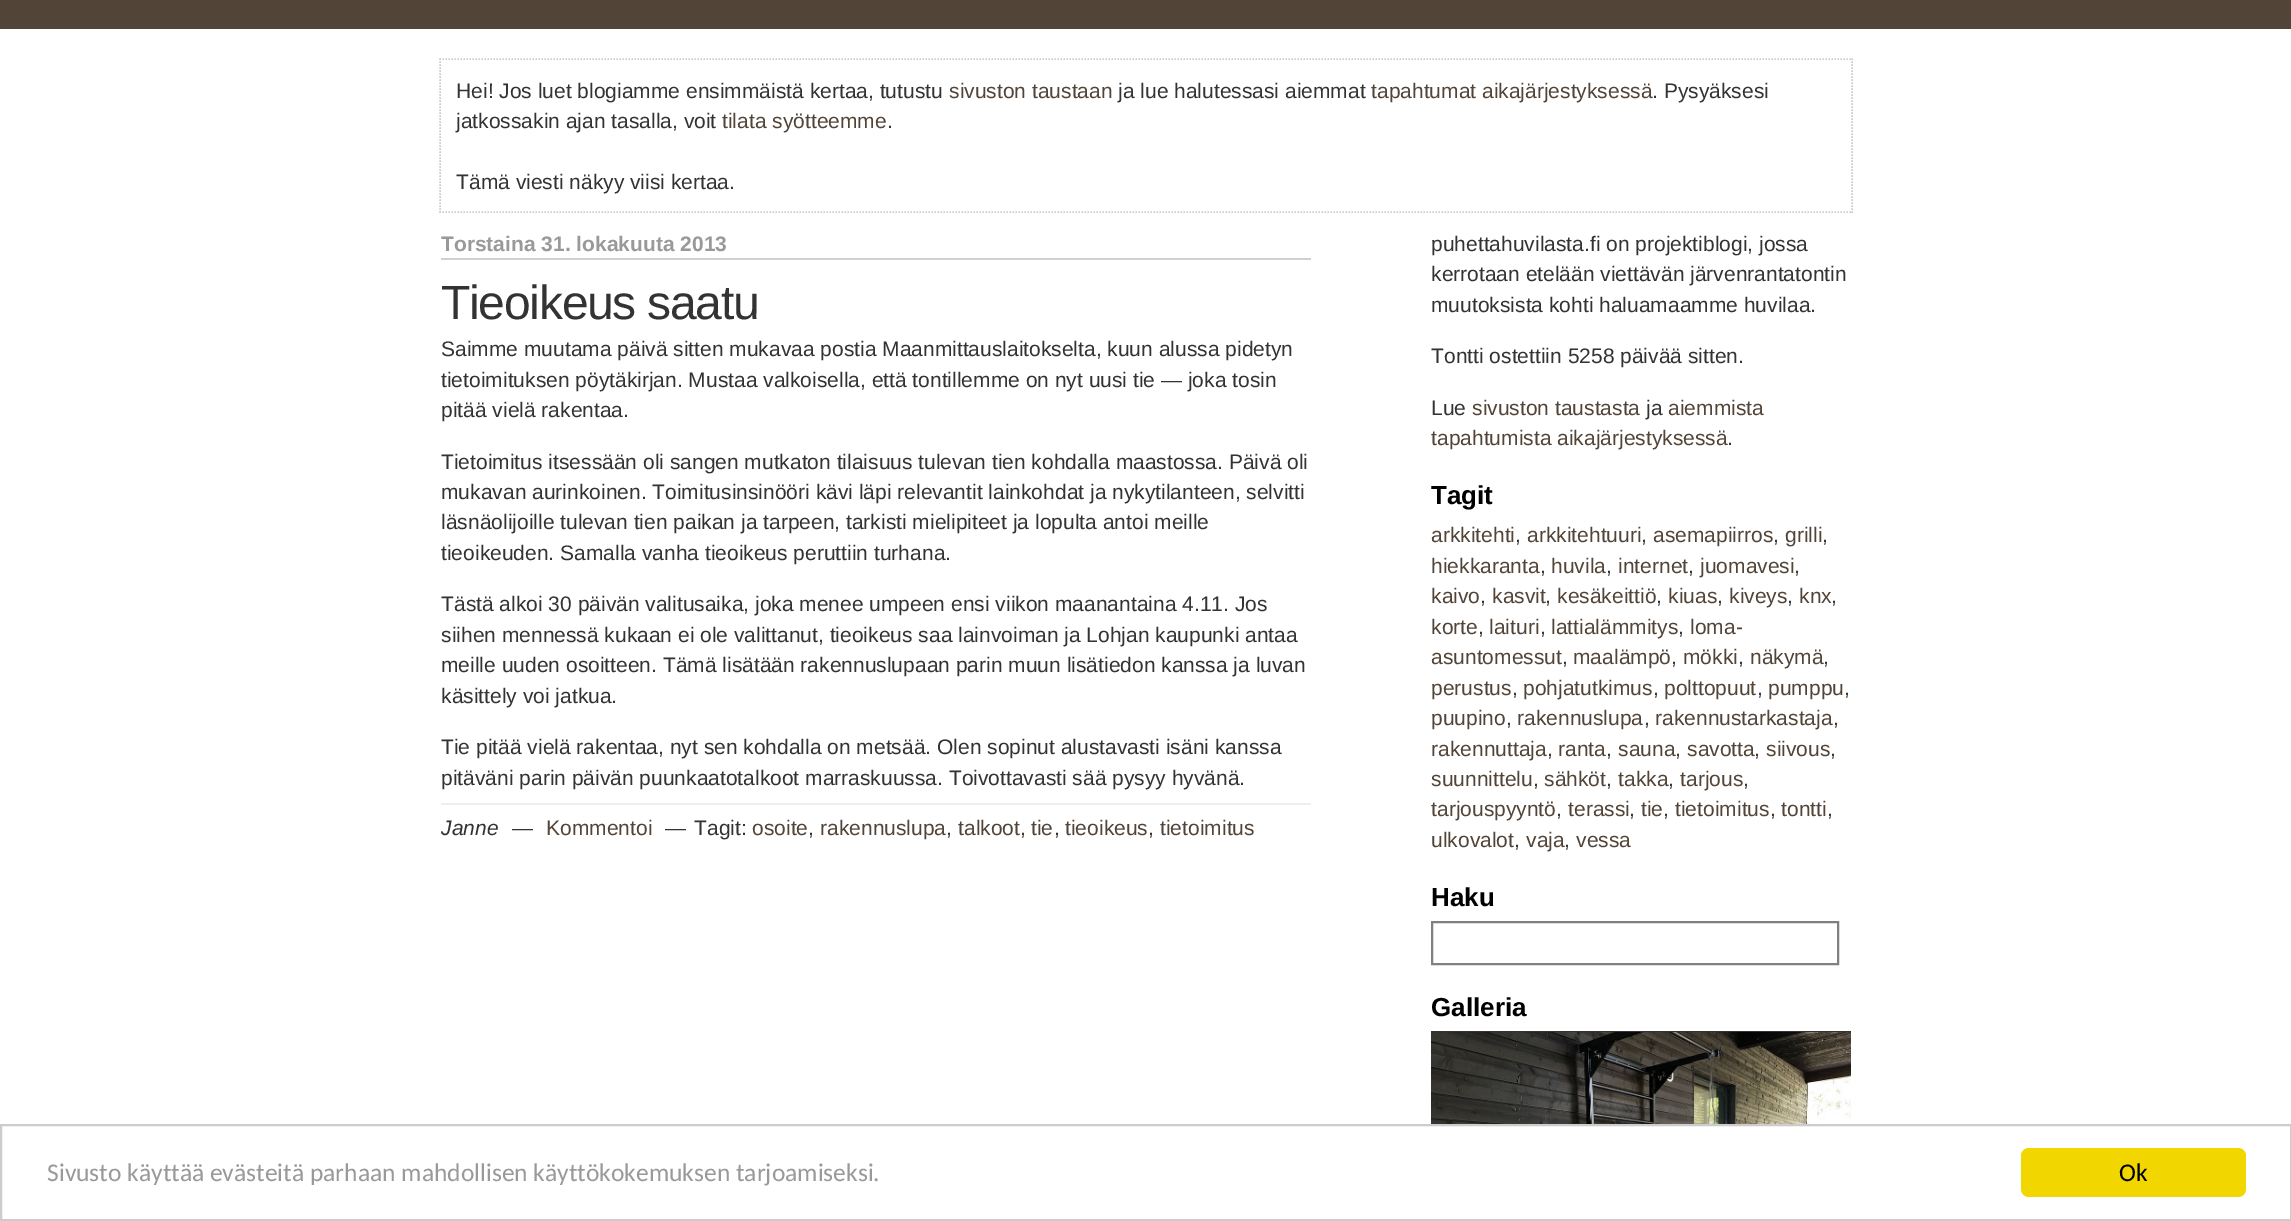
%!PS-Adobe-3.0
%%BoundingBox: 0 0 2291 1221
%%LanguageLevel: 3
%%Pages: 1
%%EndComments
%%BeginProlog
/rrect { 5 dict begin { /r /h /w /y /x } { exch def } forall
  x r add y moveto x w add y 2 copy h add r arct x w add y h add x 1 index r arct
  x y h add x y r arct x y 2 copy exch w add exch r arct closepath end } def
/drawimage { 5 dict begin { /h /w /y /x /name } { exch def } forall
  gsave x y translate w h scale
  w h 8 [w 0 0 h 0 0] name (r) file false 3 colorimage grestore end } def
%%EndProlog
%%BeginSetup
<< /PageSize [2291 1221] >> setpagedevice
%%EndSetup
%%Page: 1 1
0 1221 translate 1 -1 scale
4 setmiterlimit
1 setgray
0 0 2291 1221 rectfill
0.325 0.267 0.22 setrgbcolor
0 0 2291 29 rectfill
0.8 setgray
1.5 setlinewidth
[1.5 1.5] 0 setdash
newpath 439.5 59 moveto 1852.5 59 lineto stroke
newpath 1852 58.5 moveto 1852 213 lineto stroke
newpath 439.5 212 moveto 1852.5 212 lineto stroke
newpath 440 58.5 moveto 440 213 lineto stroke
0.816 setgray
441 258 870 2 rectfill
0.502 setgray
2 setlinewidth
[] 0 setdash
1432 922 406 42 rectstroke
0.2 setgray
1431 1031 420 1 rectfill
(images/1.raw) 1431 1032 420 92 drawimage
0.933 setgray
441 803 870 2 rectfill
0.8 setgray
1 1125 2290 95 rectstroke
0.945 0.839 0 setrgbcolor
2021 1148 225 49 8 rrect fill
/LiberationSans-Regular [21 0 0 -21 0 0] selectfont
0.2 setgray
456 98 moveto (Hei! Jos luet blogiamme ensimmäistä kertaa, tutustu) show
0.325 0.267 0.22 setrgbcolor
949 98 moveto (sivuston taustaan) show
0.2 setgray
1118 98 moveto (ja lue halutessasi aiemmat) show
0.325 0.267 0.22 setrgbcolor
1371 98 moveto (tapahtumat aikajärjestyksessä) show
0.2 setgray
1652 98 moveto (. Pysyäksesi) show
456 128 moveto (jatkossakin ajan tasalla, voit) show
0.325 0.267 0.22 setrgbcolor
722 128 moveto (tilata syötteemme) show
0.2 setgray
887 128 moveto (.) show
456 189 moveto (Tämä viesti näkyy viisi kertaa.) show
/LiberationSans-Bold [21 0 0 -21 0 0] selectfont
0.6 setgray
441 251 moveto (Torstaina 31. lokakuuta 2013) show
/LiberationSans-Regular [21 0 0 -21 0 0] selectfont
0.2 setgray
1431 251 moveto (puhettahuvilasta.fi on projektiblogi, jossa) show
1431 281 moveto (kerrotaan etelään viettävän järvenrantatontin) show
1431 312 moveto (muutoksista kohti haluamaamme huvilaa.) show
1431 363 moveto (Tontti ostettiin 5258 päivää sitten.) show
1431 415 moveto (Lue) show
0.325 0.267 0.22 setrgbcolor
1472 415 moveto (sivuston taustasta) show
0.2 setgray
1646 415 moveto (ja) show
0.325 0.267 0.22 setrgbcolor
1668 415 moveto (aiemmista) show
1431 445 moveto (tapahtumista aikajärjestyksessä) show
0.2 setgray
1727 445 moveto (.) show
/LiberationSans-Bold [26 0 0 -26 0 0] selectfont
0 setgray
1431 504 moveto (Tagit) show
/LiberationSans-Regular [21 0 0 -21 0 0] selectfont
0.325 0.267 0.22 setrgbcolor
1431 542 moveto (arkkitehti) show
0.2 setgray
1515 542 moveto (,) show
0.325 0.267 0.22 setrgbcolor
1527 542 moveto (arkkitehtuuri) show
0.2 setgray
1641 542 moveto (,) show
0.325 0.267 0.22 setrgbcolor
1653 542 moveto (asemapiirros) show
0.2 setgray
1773 542 moveto (,) show
0.325 0.267 0.22 setrgbcolor
1785 542 moveto (grilli) show
0.2 setgray
1822 542 moveto (,) show
0.325 0.267 0.22 setrgbcolor
1431 573 moveto (hiekkaranta) show
0.2 setgray
1540 573 moveto (,) show
0.325 0.267 0.22 setrgbcolor
1551 573 moveto (huvila) show
0.2 setgray
1606 573 moveto (,) show
0.325 0.267 0.22 setrgbcolor
1618 573 moveto (internet) show
0.2 setgray
1688 573 moveto (,) show
0.325 0.267 0.22 setrgbcolor
1700 573 moveto (juomavesi) show
0.2 setgray
1794 573 moveto (,) show
0.325 0.267 0.22 setrgbcolor
1431 603 moveto (kaivo) show
0.2 setgray
1480 603 moveto (,) show
0.325 0.267 0.22 setrgbcolor
1492 603 moveto (kasvit) show
0.2 setgray
1545 603 moveto (,) show
0.325 0.267 0.22 setrgbcolor
1557 603 moveto (kesäkeittiö) show
0.2 setgray
1656 603 moveto (,) show
0.325 0.267 0.22 setrgbcolor
1668 603 moveto (kiuas) show
0.2 setgray
1717 603 moveto (,) show
0.325 0.267 0.22 setrgbcolor
1729 603 moveto (kiveys) show
0.2 setgray
1787 603 moveto (,) show
0.325 0.267 0.22 setrgbcolor
1799 603 moveto (knx) show
0.2 setgray
1831 603 moveto (,) show
0.325 0.267 0.22 setrgbcolor
1431 634 moveto (korte) show
0.2 setgray
1478 634 moveto (,) show
0.325 0.267 0.22 setrgbcolor
1489 634 moveto (laituri) show
0.2 setgray
1540 634 moveto (,) show
0.325 0.267 0.22 setrgbcolor
1551 634 moveto (lattialämmitys) show
0.2 setgray
1678 634 moveto (,) show
0.325 0.267 0.22 setrgbcolor
1690 634 moveto (loma-) show
1431 664 moveto (asuntomessut) show
0.2 setgray
1562 664 moveto (,) show
0.325 0.267 0.22 setrgbcolor
1573 664 moveto (maalämpö) show
0.2 setgray
1671 664 moveto (,) show
0.325 0.267 0.22 setrgbcolor
1683 664 moveto (mökki) show
0.2 setgray
1738 664 moveto (,) show
0.325 0.267 0.22 setrgbcolor
1750 664 moveto (näkymä) show
0.2 setgray
1823 664 moveto (,) show
0.325 0.267 0.22 setrgbcolor
1431 695 moveto (perustus) show
0.2 setgray
1512 695 moveto (,) show
0.325 0.267 0.22 setrgbcolor
1523 695 moveto (pohjatutkimus) show
0.2 setgray
1653 695 moveto (,) show
0.325 0.267 0.22 setrgbcolor
1664 695 moveto (polttopuut) show
0.2 setgray
1757 695 moveto (,) show
0.325 0.267 0.22 setrgbcolor
1768 695 moveto (pumppu) show
0.2 setgray
1844 695 moveto (,) show
0.325 0.267 0.22 setrgbcolor
1431 725 moveto (puupino) show
0.2 setgray
1506 725 moveto (,) show
0.325 0.267 0.22 setrgbcolor
1517 725 moveto (rakennuslupa) show
0.2 setgray
1644 725 moveto (,) show
0.325 0.267 0.22 setrgbcolor
1655 725 moveto (rakennustarkastaja) show
0.2 setgray
1833 725 moveto (,) show
0.325 0.267 0.22 setrgbcolor
1431 756 moveto (rakennuttaja) show
0.2 setgray
1547 756 moveto (,) show
0.325 0.267 0.22 setrgbcolor
1558 756 moveto (ranta) show
0.2 setgray
1606 756 moveto (,) show
0.325 0.267 0.22 setrgbcolor
1618 756 moveto (sauna) show
0.2 setgray
1675 756 moveto (,) show
0.325 0.267 0.22 setrgbcolor
1687 756 moveto (savotta) show
0.2 setgray
1754 756 moveto (,) show
0.325 0.267 0.22 setrgbcolor
1766 756 moveto (siivous) show
0.2 setgray
1830 756 moveto (,) show
0.325 0.267 0.22 setrgbcolor
1431 786 moveto (suunnittelu) show
0.2 setgray
1533 786 moveto (,) show
0.325 0.267 0.22 setrgbcolor
1544 786 moveto (sähköt) show
0.2 setgray
1606 786 moveto (,) show
0.325 0.267 0.22 setrgbcolor
1618 786 moveto (takka) show
0.2 setgray
1668 786 moveto (,) show
0.325 0.267 0.22 setrgbcolor
1680 786 moveto (tarjous) show
0.2 setgray
1743 786 moveto (,) show
0.325 0.267 0.22 setrgbcolor
1431 816 moveto (tarjouspyyntö) show
0.2 setgray
1556 816 moveto (,) show
0.325 0.267 0.22 setrgbcolor
1568 816 moveto (terassi) show
0.2 setgray
1629 816 moveto (,) show
0.325 0.267 0.22 setrgbcolor
1641 816 moveto (tie) show
0.2 setgray
1663 816 moveto (,) show
0.325 0.267 0.22 setrgbcolor
1675 816 moveto (tietoimitus) show
0.2 setgray
1770 816 moveto (,) show
0.325 0.267 0.22 setrgbcolor
1781 816 moveto (tontti) show
0.2 setgray
1827 816 moveto (,) show
0.325 0.267 0.22 setrgbcolor
1431 847 moveto (ulkovalot) show
0.2 setgray
1514 847 moveto (,) show
0.325 0.267 0.22 setrgbcolor
1526 847 moveto (vaja) show
0.2 setgray
1564 847 moveto (,) show
0.325 0.267 0.22 setrgbcolor
1576 847 moveto (vessa) show
/LiberationSans-Bold [26 0 0 -26 0 0] selectfont
0 setgray
1431 906 moveto (Haku) show
1431 1016 moveto (Galleria) show
/LiberationSans-Regular [48 0 0 -48 0 0] selectfont
0.2 setgray
441 319 moveto -1.25 0 (Tieoikeus saatu) ashow
/LiberationSans-Regular [21 0 0 -21 0 0] selectfont
441 356 moveto (Saimme muutama päivä sitten mukavaa postia Maanmittauslaitokselta, kuun alussa pidetyn) show
441 387 moveto (tietoimituksen pöytäkirjan. Mustaa valkoisella, että tontillemme on nyt uusi tie — joka tosin) show
441 417 moveto (pitää vielä rakentaa.) show
441 469 moveto (Tietoimitus itsessään oli sangen mutkaton tilaisuus tulevan tien kohdalla maastossa. Päivä oli) show
441 499 moveto (mukavan aurinkoinen. Toimitusinsinööri kävi läpi relevantit lainkohdat ja nykytilanteen, selvitti) show
441 529 moveto (läsnäolijoille tulevan tien paikan ja tarpeen, tarkisti mielipiteet ja lopulta antoi meille) show
441 560 moveto (tieoikeuden. Samalla vanha tieoikeus peruttiin turhana.) show
441 611 moveto (Tästä alkoi 30 päivän valitusaika, joka menee umpeen ensi viikon maanantaina 4.11. Jos) show
441 642 moveto (siihen mennessä kukaan ei ole valittanut, tieoikeus saa lainvoiman ja Lohjan kaupunki antaa) show
441 672 moveto (meille uuden osoitteen. Tämä lisätään rakennuslupaan parin muun lisätiedon kanssa ja luvan) show
441 703 moveto (käsittely voi jatkua.) show
441 754 moveto (Tie pitää vielä rakentaa, nyt sen kohdalla on metsää. Olen sopinut alustavasti isäni kanssa) show
441 785 moveto (pitäväni parin päivän puunkaatotalkoot marraskuussa. Toivottavasti sää pysyy hyvänä.) show
/LiberationSans-Italic [21 0 0 -21 0 0] selectfont
441 835 moveto (Janne) show
/LiberationSans-Regular [21 0 0 -21 0 0] selectfont
512 835 moveto (—) show
0.325 0.267 0.22 setrgbcolor
546 835 moveto (Kommentoi) show
0.2 setgray
665 835 moveto (—) show
694 835 moveto (Tagit:) show
0.325 0.267 0.22 setrgbcolor
752 835 moveto (osoite) show
820 835 moveto (rakennuslupa) show
958 835 moveto (talkoot) show
1031 835 moveto (tie) show
1065 835 moveto (tieoikeus) show
1160 835 moveto (tietoimitus) show
0.2 setgray
808 835 moveto (,) show
946 835 moveto (,) show
1020 835 moveto (,) show
1054 835 moveto (,) show
1148 835 moveto (,) show
/Carlito-Regular [25.5 0 0 -25.5 0 0] selectfont
0.6 setgray
47 1181 moveto (Sivusto käyttää evästeitä parhaan mahdollisen käyttökokemuksen tarjoamiseksi.) show
0 setgray
2119 1181 moveto (Ok) show
showpage
%%EOF
